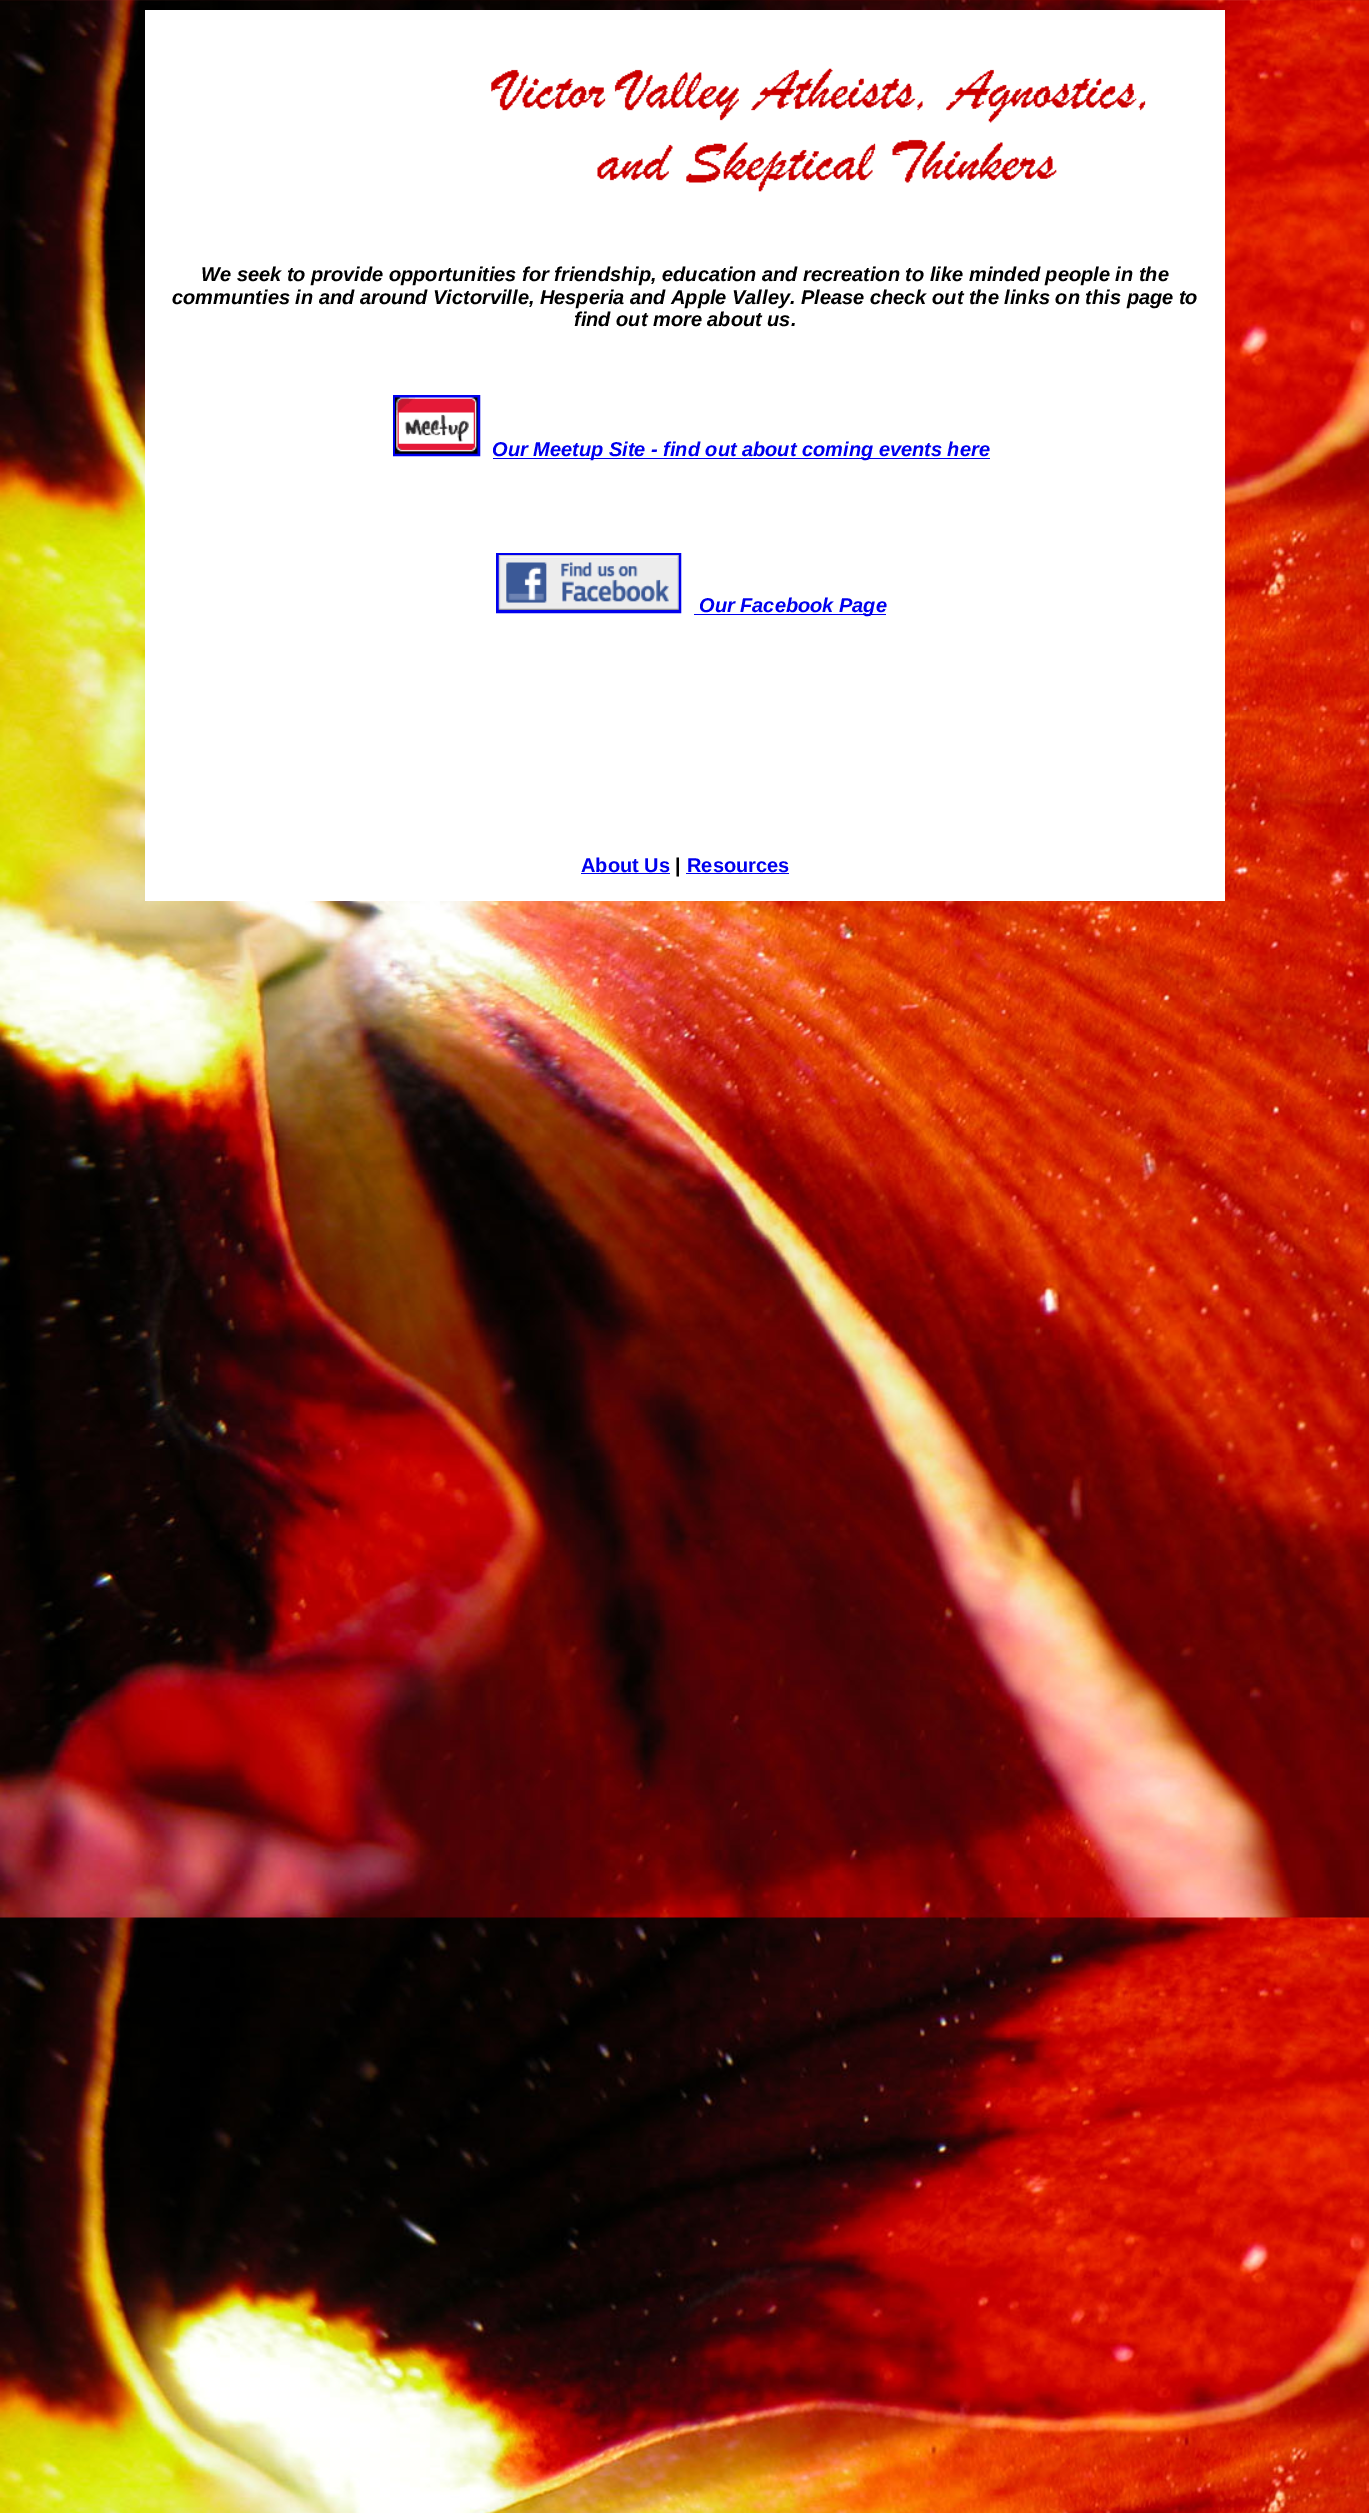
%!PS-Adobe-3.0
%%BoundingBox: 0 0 1369 2513
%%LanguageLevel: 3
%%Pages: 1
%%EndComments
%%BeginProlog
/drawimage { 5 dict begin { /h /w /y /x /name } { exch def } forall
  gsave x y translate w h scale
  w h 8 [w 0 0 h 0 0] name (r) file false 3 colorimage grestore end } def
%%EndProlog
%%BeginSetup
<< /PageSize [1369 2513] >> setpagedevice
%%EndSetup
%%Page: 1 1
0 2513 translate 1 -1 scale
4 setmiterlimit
1 setgray
0 0 1369 2513 rectfill
(images/1.raw) 0 0 1369 2513 drawimage
145 10 1080 891 rectfill
(images/2.raw) 491 68 655 124 drawimage
0 0 0.933 setrgbcolor
3 setlinewidth
394.5 396.5 84 58 rectstroke
(images/3.raw) 395 397 83 57 drawimage
493 458 497 1 rectfill
497.5 554.5 182 57 rectstroke
(images/4.raw) 498 555 181 55 drawimage
694 614 192 1 rectfill
581 873 89 1 rectfill
686 873 103 1 rectfill
/LiberationSans-BoldItalic [20 0 0 -20 0 0] selectfont
0 setgray
201 281 moveto (We seek to provide opportunities for friendship, education and recreation to like minded people in the) show
172 304 moveto (communties in and around Victorville, Hesperia and Apple Valley. Please check out the links on this page to) show
574 326 moveto (find out more about us.) show
0 0 0.933 setrgbcolor
492 456 moveto (Our Meetup Site - find out about coming events here) show
699 612 moveto (Our Facebook Page) show
/LiberationSans-Bold [20 0 0 -20 0 0] selectfont
581 872 moveto (About Us) show
0 setgray
675 872 moveto (|) show
0 0 0.933 setrgbcolor
687 872 moveto (Resources) show
showpage
%%EOF
